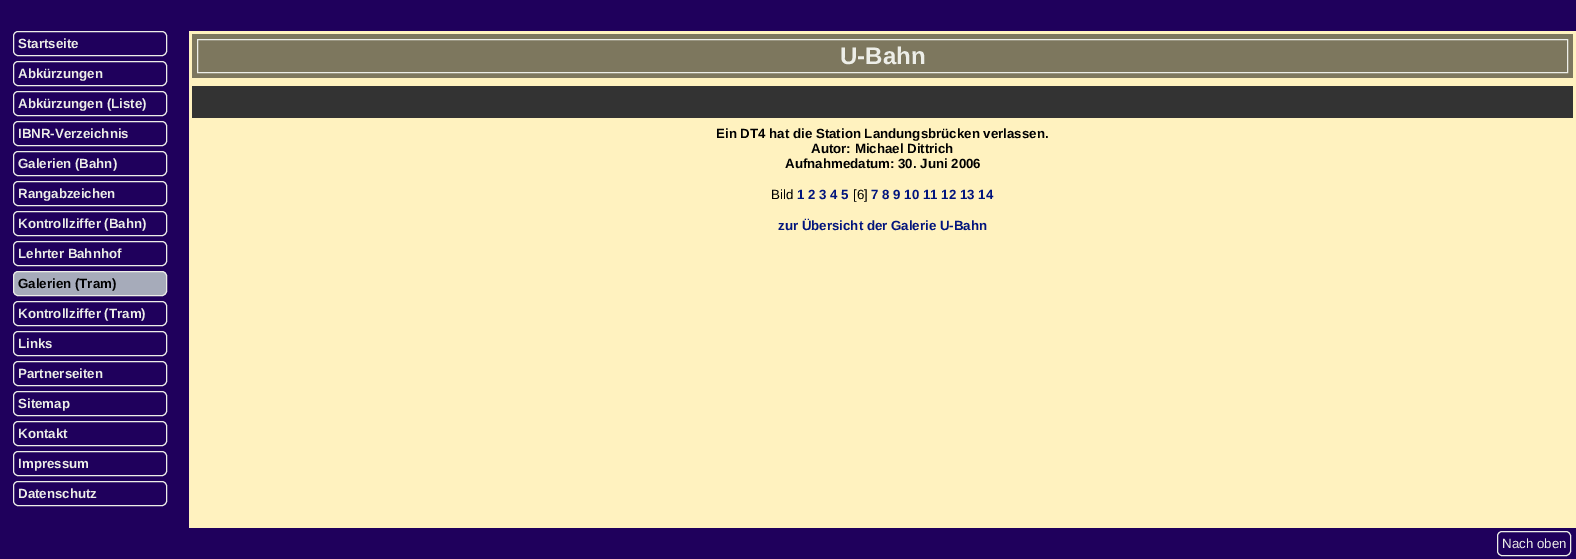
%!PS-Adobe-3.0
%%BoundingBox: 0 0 1576 559
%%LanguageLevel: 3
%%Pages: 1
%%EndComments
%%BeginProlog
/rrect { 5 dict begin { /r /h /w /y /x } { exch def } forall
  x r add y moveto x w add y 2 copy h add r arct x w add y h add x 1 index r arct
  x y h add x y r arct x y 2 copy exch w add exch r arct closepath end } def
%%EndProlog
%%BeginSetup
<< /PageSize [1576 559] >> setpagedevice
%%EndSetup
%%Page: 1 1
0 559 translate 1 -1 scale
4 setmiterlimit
0.122 0 0.361 setrgbcolor
0 0 1576 559 rectfill
0.929 0.933 0.91 setrgbcolor
13.5 31.5 153 24 4.5 rrect stroke
13.5 61.5 153 24 4.5 rrect stroke
13.5 91.5 153 24 4.5 rrect stroke
13.5 121.5 153 24 4.5 rrect stroke
13.5 151.5 153 24 4.5 rrect stroke
13.5 181.5 153 24 4.5 rrect stroke
13.5 211.5 153 24 4.5 rrect stroke
13.5 241.5 153 24 4.5 rrect stroke
0.651 0.671 0.729 setrgbcolor
13.5 271.5 153 24 4.5 rrect gsave fill grestore
0.929 0.933 0.91 setrgbcolor
stroke
13.5 301.5 153 24 4.5 rrect stroke
13.5 331.5 153 24 4.5 rrect stroke
13.5 361.5 153 24 4.5 rrect stroke
13.5 391.5 153 24 4.5 rrect stroke
13.5 421.5 153 24 4.5 rrect stroke
13.5 451.5 153 24 4.5 rrect stroke
13.5 481.5 153 24 4.5 rrect stroke
1 0.949 0.749 setrgbcolor
189 31 1387 497 rectfill
0.49 0.467 0.369 setrgbcolor
192 34 1381 44 rectfill
0.929 0.933 0.91 setrgbcolor
197.5 39.5 1370 33 rectstroke
0.2 setgray
192 86 1381 32 rectfill
0.929 0.933 0.91 setrgbcolor
1497.5 531.5 73 24 4.5 rrect stroke
/LiberationSans-Bold [13.3 0 0 -13.3 0 0] selectfont
18 48 moveto (Startseite) show
18 78 moveto (Abkürzungen) show
18 108 moveto (Abkürzungen \(Liste\)) show
18 138 moveto (IBNR-Verzeichnis) show
18 168 moveto (Galerien \(Bahn\)) show
18 198 moveto (Rangabzeichen) show
18 228 moveto (Kontrollziffer \(Bahn\)) show
18 258 moveto (Lehrter Bahnhof) show
0 setgray
18 288 moveto (Galerien \(Tram\)) show
0.929 0.933 0.91 setrgbcolor
18 318 moveto (Kontrollziffer \(Tram\)) show
18 348 moveto (Links) show
18 378 moveto (Partnerseiten) show
18 408 moveto (Sitemap) show
18 438 moveto (Kontakt) show
18 468 moveto (Impressum) show
18 498 moveto (Datenschutz) show
/LiberationSans-Bold [24 0 0 -24 0 0] selectfont
840 64 moveto (U-Bahn) show
/LiberationSans-Bold [13.3 0 0 -13.3 0 0] selectfont
0 setgray
716 138 moveto (Ein DT4 hat die Station Landungsbrücken verlassen.) show
811 153 moveto (Autor: Michael Dittrich) show
785 168 moveto (Aufnahmedatum: 30. Juni 2006) show
/LiberationSans-Regular [13.3 0 0 -13.3 0 0] selectfont
771 199 moveto (Bild) show
/LiberationSans-Bold [13.3 0 0 -13.3 0 0] selectfont
0.004 0.078 0.49 setrgbcolor
797 199 moveto (1 2 3 4 5) show
/LiberationSans-Regular [13.3 0 0 -13.3 0 0] selectfont
0 setgray
853 199 moveto ([6]) show
/LiberationSans-Bold [13.3 0 0 -13.3 0 0] selectfont
0.004 0.078 0.49 setrgbcolor
871 199 moveto (7 8 9 10 11 12 13 14) show
778 230 moveto (zur Übersicht der Galerie U-Bahn) show
/LiberationSans-Regular [13.3 0 0 -13.3 0 0] selectfont
0.929 0.933 0.91 setrgbcolor
1502 548 moveto (Nach oben) show
showpage
%%EOF
